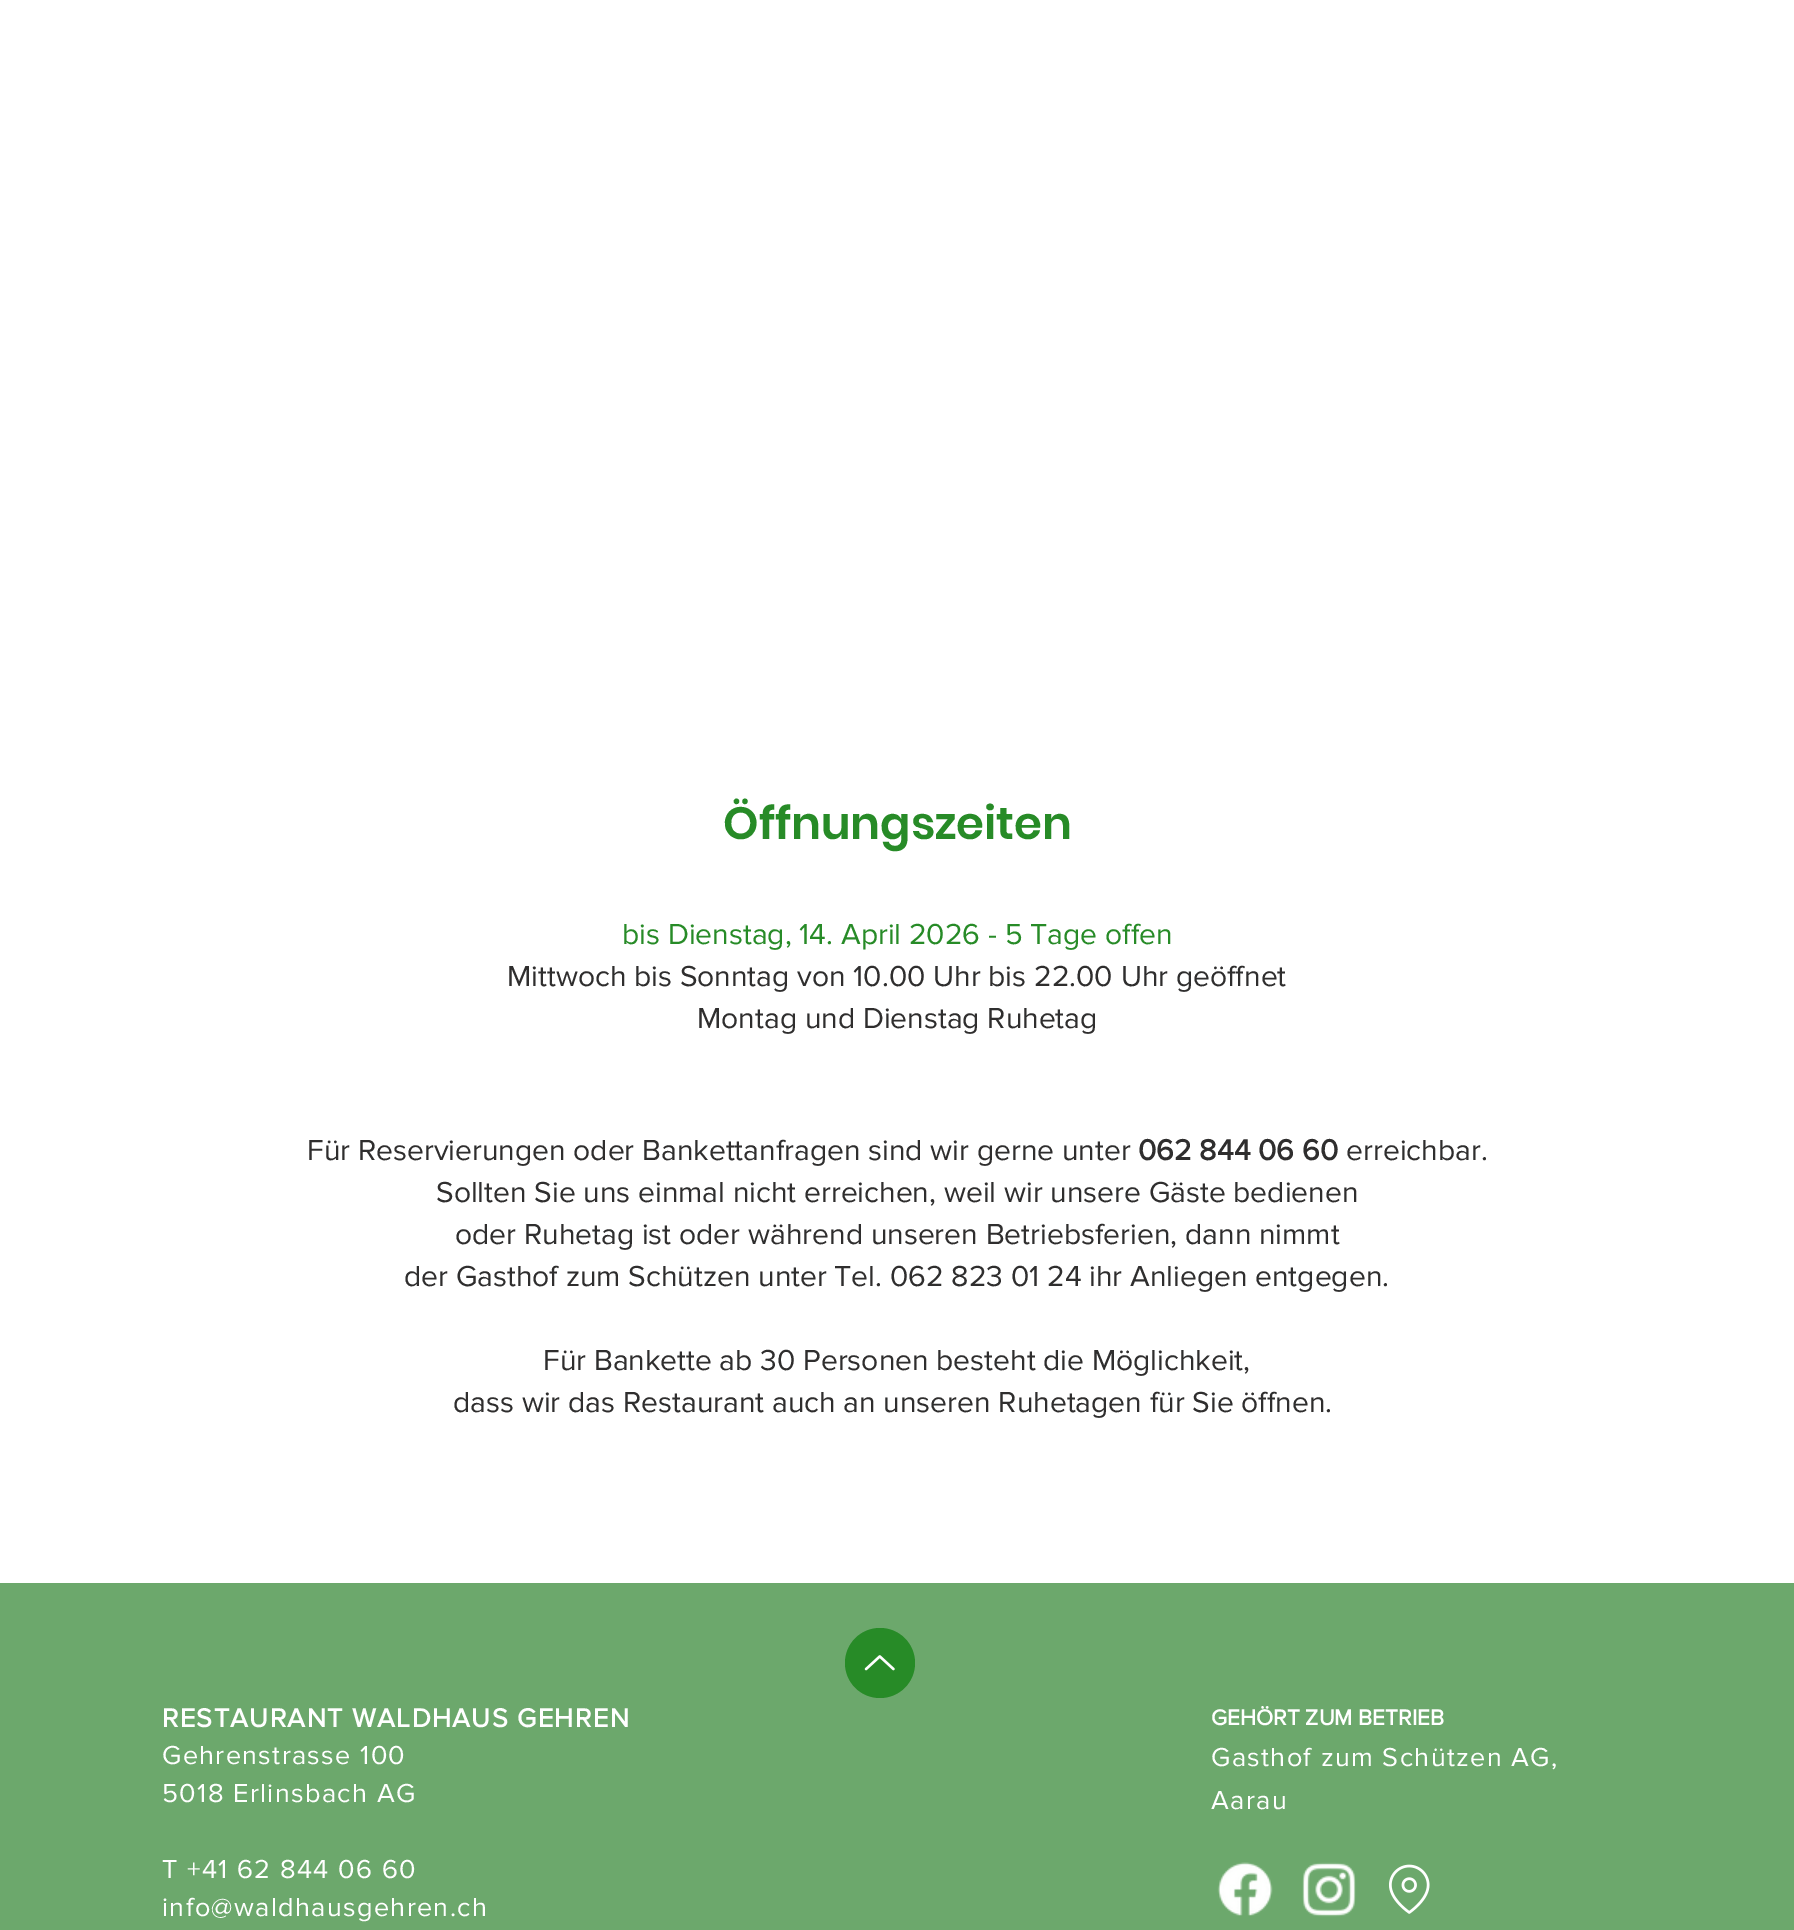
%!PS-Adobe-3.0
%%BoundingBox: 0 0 1794 1930
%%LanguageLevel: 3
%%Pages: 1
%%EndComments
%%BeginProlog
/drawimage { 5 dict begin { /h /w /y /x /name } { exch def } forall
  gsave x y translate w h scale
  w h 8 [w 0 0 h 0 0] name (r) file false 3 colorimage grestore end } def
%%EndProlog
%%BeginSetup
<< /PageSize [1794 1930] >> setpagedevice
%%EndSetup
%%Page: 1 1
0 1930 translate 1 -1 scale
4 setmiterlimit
1 setgray
0 0 1794 1930 rectfill
0.424 0.659 0.424 setrgbcolor
0 1583 1794 347 rectfill
0.153 0.545 0.153 setrgbcolor
newpath 880 1663 35 0 360 arc closepath fill
(images/1.raw) 864 1655 31 16 drawimage
(images/2.raw) 1217 1862 56 54 drawimage
(images/3.raw) 1302 1862 54 55 drawimage
(images/4.raw) 1389 1864 41 50 drawimage
/Poppins-SemiBold [45 0 0 -45 0 0] selectfont
723 839 moveto (Öffnungszeiten) show
/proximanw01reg-Regular [30 0 0 -30 0 0] selectfont
622 944 moveto (bis Dienstag, 14. April 2026 - 5 Tage offen) show
0.184 0.18 0.18 setrgbcolor
507 986 moveto (Mittwoch bis Sonntag von 10.00 Uhr bis 22.00 Uhr geöffnet) show
697 1028 moveto (Montag und Dienstag Ruhetag) show
307 1160 moveto (Für Reservierungen oder Bankettanfragen sind wir gerne unter) show
/proximanw01reg-Bold [30 0 0 -30 0 0] selectfont
1138 1160 moveto (062 844 06 60) show
/proximanw01reg-Regular [30 0 0 -30 0 0] selectfont
1346 1160 moveto (erreichbar.) show
436 1202 moveto (Sollten Sie uns einmal nicht erreichen, weil wir unsere Gäste bedienen) show
455 1244 moveto (oder Ruhetag ist oder während unseren Betriebsferien, dann nimmt) show
404 1286 moveto (der Gasthof zum Schützen unter Tel. 062 823 01 24 ihr Anliegen entgegen.) show
543 1370 moveto (Für Bankette ab 30 Personen besteht die Möglichkeit,) show
453 1412 moveto (dass wir das Restaurant auch an unseren Ruhetagen für Sie öffnen.) show
/proximanw01reg-Bold [27 0 0 -27 0 0] selectfont
1 setgray
162 1727 moveto 1.35 0 (RESTAURANT WALDHAUS GEHREN) ashow
/proximanw01reg-Regular [27 0 0 -27 0 0] selectfont
162 1764 moveto 1.35 0 (Gehrenstrasse 100) ashow
162 1802 moveto 1.35 0 (5018 Erlinsbach AG) ashow
162 1878 moveto 1.35 0 (T +41 62 844 06 60) ashow
162 1916 moveto 1.35 0 (info@waldhausgehren.ch) ashow
/proximanw01reg-Bold [22.5 0 0 -22.5 0 0] selectfont
1211 1725 moveto (GEHÖRT ZUM BETRIEB) show
/proximanw01reg-Regular [27 0 0 -27 0 0] selectfont
1211 1766 moveto 1.35 0 (Gasthof zum Schützen AG,) ashow
1211 1809 moveto 1.35 0 (Aarau) ashow
showpage
%%EOF
